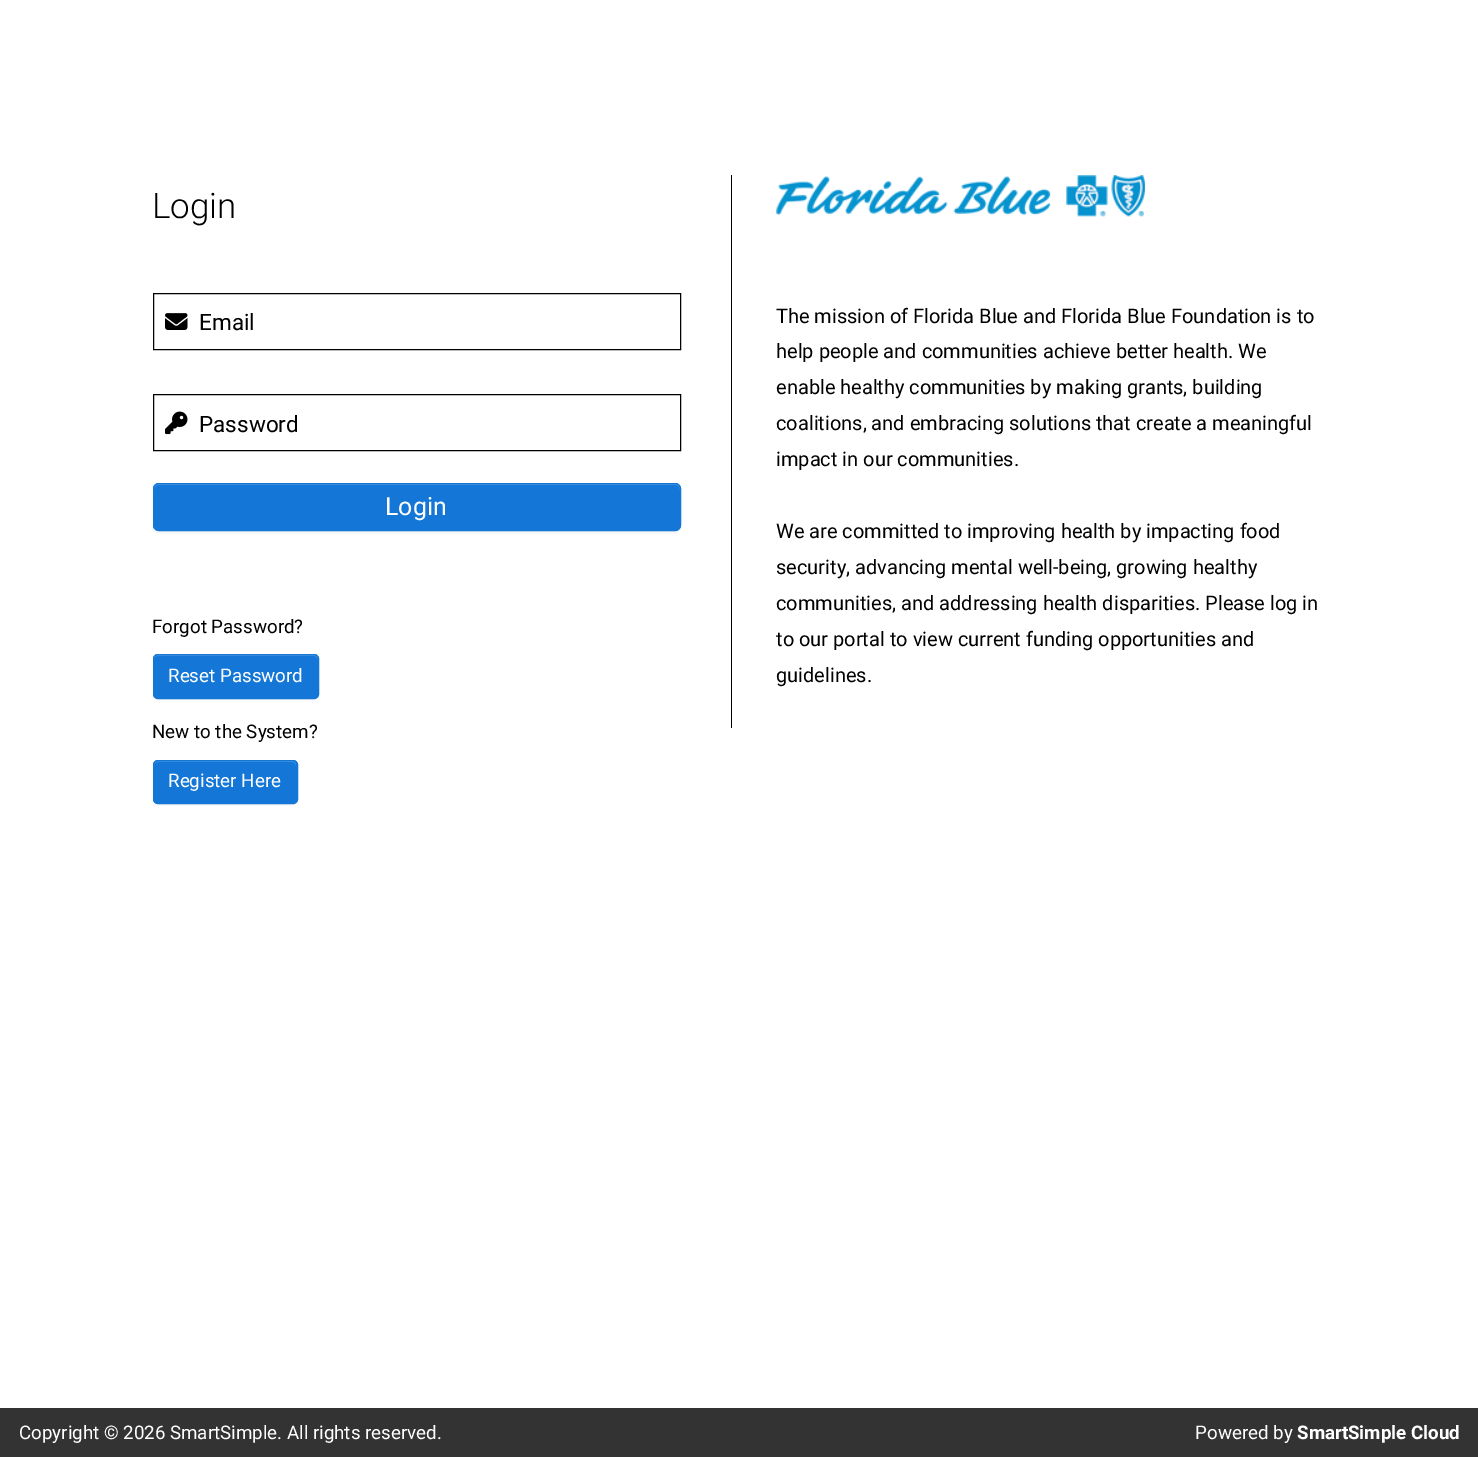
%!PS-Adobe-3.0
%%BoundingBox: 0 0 1478 1457
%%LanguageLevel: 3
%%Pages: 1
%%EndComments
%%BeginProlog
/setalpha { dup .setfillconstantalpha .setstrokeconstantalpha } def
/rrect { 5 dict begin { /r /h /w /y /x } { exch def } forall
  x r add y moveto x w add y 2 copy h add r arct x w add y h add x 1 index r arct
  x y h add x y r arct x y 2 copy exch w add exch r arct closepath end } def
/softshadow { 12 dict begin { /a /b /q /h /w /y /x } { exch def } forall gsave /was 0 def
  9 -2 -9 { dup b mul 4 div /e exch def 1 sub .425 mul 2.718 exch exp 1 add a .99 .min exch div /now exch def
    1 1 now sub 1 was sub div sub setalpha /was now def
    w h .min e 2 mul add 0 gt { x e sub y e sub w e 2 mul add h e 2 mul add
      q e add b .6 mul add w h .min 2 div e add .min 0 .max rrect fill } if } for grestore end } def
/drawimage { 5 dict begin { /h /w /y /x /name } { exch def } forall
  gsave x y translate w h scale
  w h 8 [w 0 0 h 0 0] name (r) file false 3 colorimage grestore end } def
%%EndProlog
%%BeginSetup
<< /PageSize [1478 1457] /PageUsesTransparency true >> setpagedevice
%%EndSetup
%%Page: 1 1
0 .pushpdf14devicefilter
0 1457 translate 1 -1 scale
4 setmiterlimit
1 setgray
0 0 1478 1457 rectfill
0 setgray
153.5 293.5 527 56 rectstroke
(images/1.raw) 165 313 23 17 drawimage
153.5 394.5 527 56 rectstroke
(images/2.raw) 165 411 23 24 drawimage
153 484 528 49 6 1 0.05 softshadow
0.078 0.467 0.843 setrgbcolor
153 483 528 48 6 rrect fill
0.263 0.573 0.875 setrgbcolor
newpath 159 485 moveto 675 485 lineto 678 485 680 487 680 490 curveto 680 489 lineto 680 486 678 484 675 484 curveto 159 484 lineto 156 484 154 486 154 489 curveto 154 490 lineto 154 487 156 485 159 485 curveto closepath fill
0.078 0.467 0.843 setrgbcolor
153.5 483.5 527 47 5.5 rrect stroke
0 setgray
153 655 166 45 5 1 0.05 softshadow
0.078 0.467 0.843 setrgbcolor
153 654 166 45 5 rrect fill
0.263 0.573 0.875 setrgbcolor
newpath 158 656 moveto 314 656 lineto 316 656 318 658 318 660 curveto 318 658 317 656 315 655 curveto 157 655 lineto 155 656 154 658 154 660 curveto 154 658 155 656 158 656 curveto closepath fill
0.078 0.467 0.843 setrgbcolor
153.5 654.5 165 44 4.5 rrect stroke
0 setgray
153 761 145 44 5 1 0.05 softshadow
0.078 0.467 0.843 setrgbcolor
153 760 145 44 5 rrect fill
0.263 0.573 0.875 setrgbcolor
newpath 158 762 moveto 292 762 lineto 295 762 296 764 296 766 curveto 296 765 lineto 296 763 294 761 292 761 curveto 158 761 lineto 156 761 154 763 154 765 curveto 154 766 lineto 154 764 155 762 158 762 curveto closepath fill
0.078 0.467 0.843 setrgbcolor
153.5 760.5 144 43 4.5 rrect stroke
0 setgray
731 175 1 553 rectfill
(images/3.raw) 776 175 369 42 drawimage
0.2 setgray
0 1408 1478 49 rectfill
/Roboto-Light [35 0 0 -35 0 0] selectfont
0 setgray
152 218 moveto (Login) show
/Roboto-Regular [22.5 0 0 -22.5 0 0] selectfont
199 330 moveto (Email) show
199 432 moveto (Password) show
/Roboto-Regular [25 0 0 -25 0 0] selectfont
1 setgray
385 515 moveto (Login) show
/Roboto-Regular [18.75 0 0 -18.75 0 0] selectfont
0 setgray
152 633 moveto (Forgot Password?) show
1 setgray
168 682 moveto (Reset Password) show
0 setgray
152 738 moveto (New to the System?) show
1 setgray
168 787 moveto (Register Here) show
/Roboto-Regular [20 0 0 -20 0 0] selectfont
0 setgray
776 323 moveto (The mission of Florida Blue and Florida Blue Foundation is to) show
776 358 moveto (help people and communities achieve better health. We) show
776 394 moveto (enable healthy communities by making grants, building) show
776 430 moveto (coalitions, and embracing solutions that create a meaningful) show
776 466 moveto (impact in our communities.) show
776 538 moveto (We are committed to improving health by impacting food) show
776 574 moveto (security, advancing mental well-being, growing healthy) show
776 610 moveto (communities, and addressing health disparities. Please log in) show
776 646 moveto (to our portal to view current funding opportunities and) show
776 682 moveto (guidelines.) show
/Roboto-Regular [18.75 0 0 -18.75 0 0] selectfont
1 setgray
19 1439 moveto (Copyright © 2026 SmartSimple. All rights reserved.) show
1195 1439 moveto (Powered by) show
/Roboto-Bold [18.75 0 0 -18.75 0 0] selectfont
1297 1439 moveto (SmartSimple Cloud) show
.poppdf14devicefilter showpage
%%EOF
